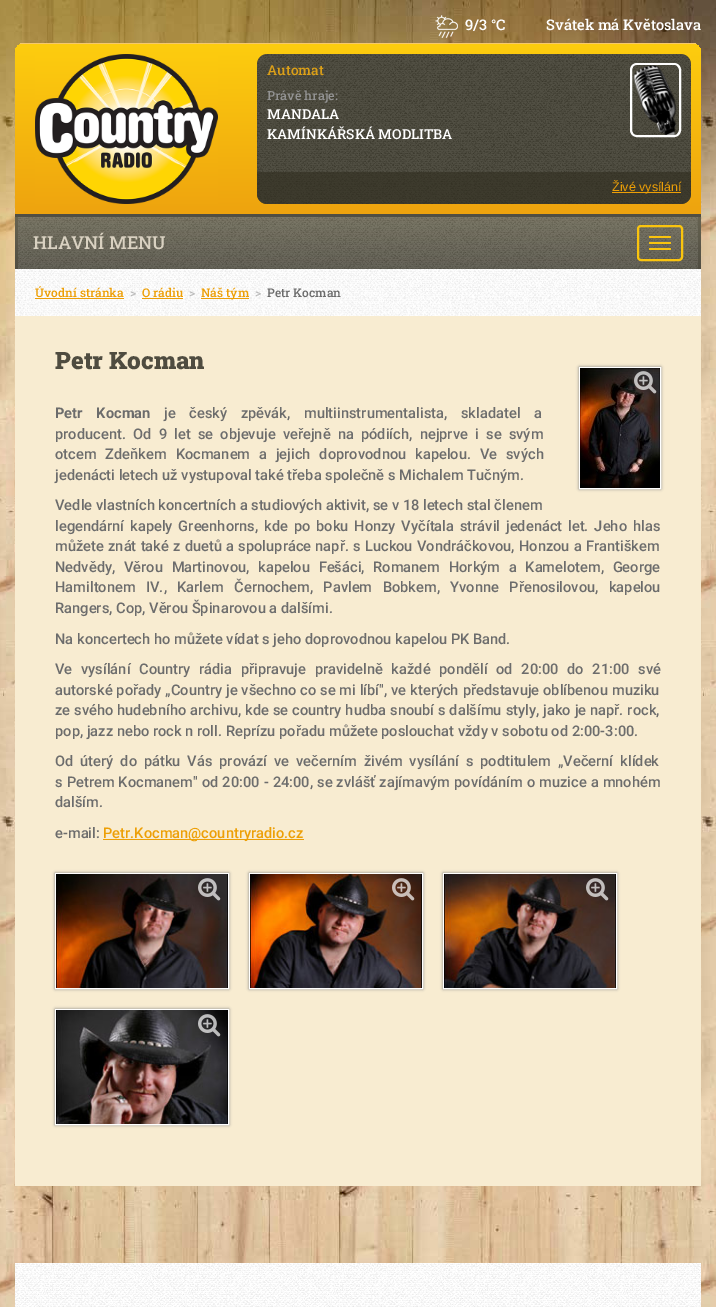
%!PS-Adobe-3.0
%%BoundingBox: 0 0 716 1307
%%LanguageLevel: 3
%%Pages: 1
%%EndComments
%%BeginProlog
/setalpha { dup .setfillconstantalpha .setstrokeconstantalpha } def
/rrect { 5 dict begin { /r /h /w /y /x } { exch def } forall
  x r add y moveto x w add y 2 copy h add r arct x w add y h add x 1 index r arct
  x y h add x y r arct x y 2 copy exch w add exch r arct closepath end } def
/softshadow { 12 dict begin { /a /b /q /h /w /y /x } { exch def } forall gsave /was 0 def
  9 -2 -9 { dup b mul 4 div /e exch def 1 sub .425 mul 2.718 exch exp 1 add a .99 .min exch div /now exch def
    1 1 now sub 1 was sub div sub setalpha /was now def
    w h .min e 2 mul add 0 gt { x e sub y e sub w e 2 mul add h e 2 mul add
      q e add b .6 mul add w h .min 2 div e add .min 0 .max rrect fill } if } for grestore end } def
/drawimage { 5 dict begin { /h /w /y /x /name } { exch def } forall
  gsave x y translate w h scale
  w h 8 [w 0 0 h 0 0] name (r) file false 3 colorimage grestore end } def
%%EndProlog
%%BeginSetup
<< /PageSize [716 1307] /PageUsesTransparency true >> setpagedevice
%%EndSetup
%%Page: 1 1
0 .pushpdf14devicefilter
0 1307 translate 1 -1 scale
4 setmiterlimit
1 setgray
0 0 716 1307 rectfill
(images/1.raw) 0 0 716 1307 drawimage
(images/2.raw) 435 15 23 23 drawimage
gsave
newpath 25 43 moveto 691 43 lineto 696.5 43 701 47.5 701 53 curveto 701 214 lineto 15 214 lineto 15 53 lineto 15 47.5 19.5 43 25 43 curveto closepath clip newpath
gsave newpath 15 43 moveto 701 43 lineto 701 44 lineto 15 44 lineto closepath clip newpath
<< /ShadingType 2 /ColorSpace /DeviceRGB /Coords [358 -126 358 44] /Extend [true true] /Function << /FunctionType 2 /Domain [0 1] /C0 [0.992 0.804 0.055] /C1 [0.933 0.639 0.055] /N 1 >> >> shfill grestore
gsave newpath 15 44 moveto 701 44 lineto 701 214 lineto 15 214 lineto closepath clip newpath
<< /ShadingType 2 /ColorSpace /DeviceRGB /Coords [358 44 358 214] /Extend [true true] /Function << /FunctionType 2 /Domain [0 1] /C0 [0.992 0.804 0.055] /C1 [0.933 0.639 0.055] /N 1 >> >> shfill grestore
grestore
0.4 setalpha
20 43 676 1 rectfill
1 setalpha
(images/3.raw) 35 54 183 150 drawimage
0.188 0.176 0.122 setrgbcolor
257 54 434 150 10 rrect fill
(images/4.raw) 257 54 434 150 drawimage
1 setgray
2 setlinewidth
631 64 49 72 6 rrect stroke
(images/5.raw) 633 65 44 70 drawimage
0.6 setalpha
0.188 0.176 0.122 setrgbcolor
newpath 257 172 moveto 691 172 lineto 691 194 lineto 691 199.5 686.5 204 681 204 curveto 267 204 lineto 261.5 204 257 199.5 257 194 curveto closepath fill
1 setalpha
0.929 0.624 0.024 setrgbcolor
612 192 69 1 rectfill
gsave newpath 15 214 moveto 701 214 lineto 701 217 lineto 15 217 lineto closepath clip newpath
<< /ShadingType 2 /ColorSpace /DeviceRGB /Coords [358 165 358 217] /Extend [true true] /Function << /FunctionType 2 /Domain [0 1] /C0 [0.38 0.365 0.286] /C1 [0.282 0.271 0.224] /N 1 >> >> shfill grestore
gsave newpath 15 217 moveto 701 217 lineto 701 269 lineto 15 269 lineto closepath clip newpath
<< /ShadingType 2 /ColorSpace /DeviceRGB /Coords [358 217 358 269] /Extend [true true] /Function << /FunctionType 2 /Domain [0 1] /C0 [0.38 0.365 0.286] /C1 [0.282 0.271 0.224] /N 1 >> >> shfill grestore
0.314 0.306 0.263 setrgbcolor
newpath 15 214 moveto 701 214 lineto 698 217 lineto 18 217 lineto closepath fill
0.1 setalpha
0.588 setgray
newpath 701 214 moveto 701 269 lineto 698 269 lineto 698 217 lineto closepath fill
newpath 15 269 moveto 15 214 lineto 18 217 lineto 18 269 lineto closepath fill
1 setalpha
(images/6.raw) 18 217 680 52 drawimage
0.98 0.769 0.055 setrgbcolor
638 226 44 34 3 rrect stroke
649 236 22 2 1 rrect fill
649 242 22 2 1 rrect fill
649 248 22 2 1 rrect fill
0.973 0.925 0.82 setrgbcolor
15 316 686 870 rectfill
1 setgray
15 269 686 47 rectfill
(images/7.raw) 15 269 686 47 drawimage
0.929 0.624 0.024 setrgbcolor
35 298 89 1 rectfill
142 298 41 1 rectfill
201 298 48 1 rectfill
0.533 setgray
579 367 82 122 0 1.5 1 softshadow
1 setgray
1 setlinewidth
579.5 367.5 81 121 rectstroke
(images/8.raw) 580 368 80 120 drawimage
(images/9.raw) 634 371 23 23 drawimage
0.929 0.624 0.024 setrgbcolor
103 839 201 1 rectfill
0.533 setgray
55 873 174 116 0 1.5 1 softshadow
1 setgray
55.5 873.5 173 115 rectstroke
(images/10.raw) 56 874 172 114 drawimage
(images/11.raw) 198 878 23 23 drawimage
0.533 setgray
249 873 174 116 0 1.5 1 softshadow
1 setgray
249.5 873.5 173 115 rectstroke
(images/12.raw) 250 874 172 114 drawimage
(images/13.raw) 392 878 23 23 drawimage
0.533 setgray
443 873 174 116 0 1.5 1 softshadow
1 setgray
443.5 873.5 173 115 rectstroke
(images/14.raw) 444 874 172 114 drawimage
(images/15.raw) 586 878 23 23 drawimage
0.533 setgray
55 1009 174 116 0 1.5 1 softshadow
1 setgray
55.5 1009.5 173 115 rectstroke
(images/16.raw) 56 1010 172 114 drawimage
(images/17.raw) 198 1014 23 23 drawimage
15 1263 686 44 rectfill
(images/18.raw) 15 1263 686 44 drawimage
/RobotoSlab-Medium [14.65 0 0 -14.65 0 0] selectfont
465 30 moveto (9/3 °C) show
546 30 moveto (Svátek má Květoslava) show
/RobotoSlab-Medium [13.75 0 0 -13.75 0 0] selectfont
0.859 0.624 0.094 setrgbcolor
267 75 moveto (Automat) show
/RobotoSlab-Medium [12.5 0 0 -12.5 0 0] selectfont
0.576 setgray
267 100 moveto (Právě hraje:) show
/RobotoSlab-Medium [13.75 0 0 -13.75 0 0] selectfont
1 setgray
267 119 moveto (MANDALA) show
267 139 moveto (KAMÍNKÁŘSKÁ MODLITBA) show
/LiberationSans-Regular [12.5 0 0 -12.5 0 0] selectfont
0.929 0.624 0.024 setrgbcolor
612 191 moveto (Živé vysílání) show
/RobotoSlab-Medium [18 0 0 -18 0 0] selectfont
0.851 0.82 0.757 setrgbcolor
33 249 moveto (HLAVNÍ MENU) show
/RobotoSlab-Medium [12 0 0 -12 0 0] selectfont
0.929 0.624 0.024 setrgbcolor
35 297 moveto (Úvodní stránka) show
0.733 setgray
130 297 moveto (>) show
0.929 0.624 0.024 setrgbcolor
142 297 moveto (O rádiu) show
0.733 setgray
189 297 moveto (>) show
0.929 0.624 0.024 setrgbcolor
201 297 moveto (Náš tým) show
0.733 setgray
255 297 moveto (>) show
0.424 setgray
267 297 moveto (Petr Kocman) show
/RobotoSlab-Black [24 0 0 -24 0 0] selectfont
0.31 0.298 0.251 setrgbcolor
55 369 moveto (Petr Kocman) show
/Roboto-Bold [14.65 0 0 -14.65 0 0] selectfont
0.424 setgray
55 418 moveto 10 0 32 (Petr Kocman) widthshow
/Roboto-Medium [14.65 0 0 -14.65 0 0] selectfont
164 418 moveto 10 0 32 (je český zpěvák, multiinstrumentalista, skladatel a) widthshow
55 439 moveto 3.6 0 32 (producent. Od 9 let se objevuje veřejně na pódiích, nejprve i se svým) widthshow
55 459 moveto 5.25 0 32 (otcem Zdeňkem Kocmanem a jejich doprovodnou kapelou. Ve svých) widthshow
55 480 moveto (jedenácti letech už vystupoval také třeba společně s Michalem Tučným.) show
55 510 moveto (Vedle vlastních koncertních a studiových aktivit, se v 18 letech stal členem) show
55 531 moveto 2.25 0 32 (legendární kapely Greenhorns, kde po boku Honzy Vyčítala strávil jedenáct let. Jeho hlas) widthshow
55 551 moveto 0.6 0 32 (můžete znát také z duetů a spolupráce např. s Luckou Vondráčkovou, Honzou a Františkem) widthshow
55 572 moveto 5 0 32 (Nedvědy, Věrou Martinovou, kapelou Fešáci, Romanem Horkým a Kamelotem, George) widthshow
55 592 moveto 6.75 0 32 (Hamiltonem IV., Karlem Černochem, Pavlem Bobkem, Yvonne Přenosilovou, kapelou) widthshow
55 613 moveto (Rangers, Cop, Věrou Špinarovou a dalšími.) show
55 644 moveto (Na koncertech ho můžete vídat s jeho doprovodnou kapelou PK Band.) show
55 674 moveto 5 0 32 (Ve vysílání Country rádia připravuje pravidelně každé pondělí od 20:00 do 21:00 své) widthshow
55 695 moveto 0.25 0 32 (autorské pořady „Country je všechno co se mi líbí", ve kterých představuje oblíbenou muziku) widthshow
55 715 moveto 0.25 0 32 (ze svého hudebního archivu, kde se country hudba snoubí s dalšímu styly, jako je např. rock,) widthshow
55 736 moveto (pop, jazz nebo rock n roll. Reprízu pořadu můžete poslouchat vždy v sobotu od 2:00-3:00.) show
55 766 moveto 3.25 0 32 (Od úterý do pátku Vás provází ve večerním živém vysílání s podtitulem „Večerní klídek) widthshow
55 787 moveto 0.4 0 32 (s Petrem Kocmanem" od 20:00 - 24:00, se zvlášť zajímavým povídáním o muzice a mnohém) widthshow
55 807 moveto (dalším.) show
55 838 moveto (e-mail:) show
0.929 0.624 0.024 setrgbcolor
103 838 moveto (Petr.Kocman@countryradio.cz) show
.poppdf14devicefilter showpage
%%EOF
